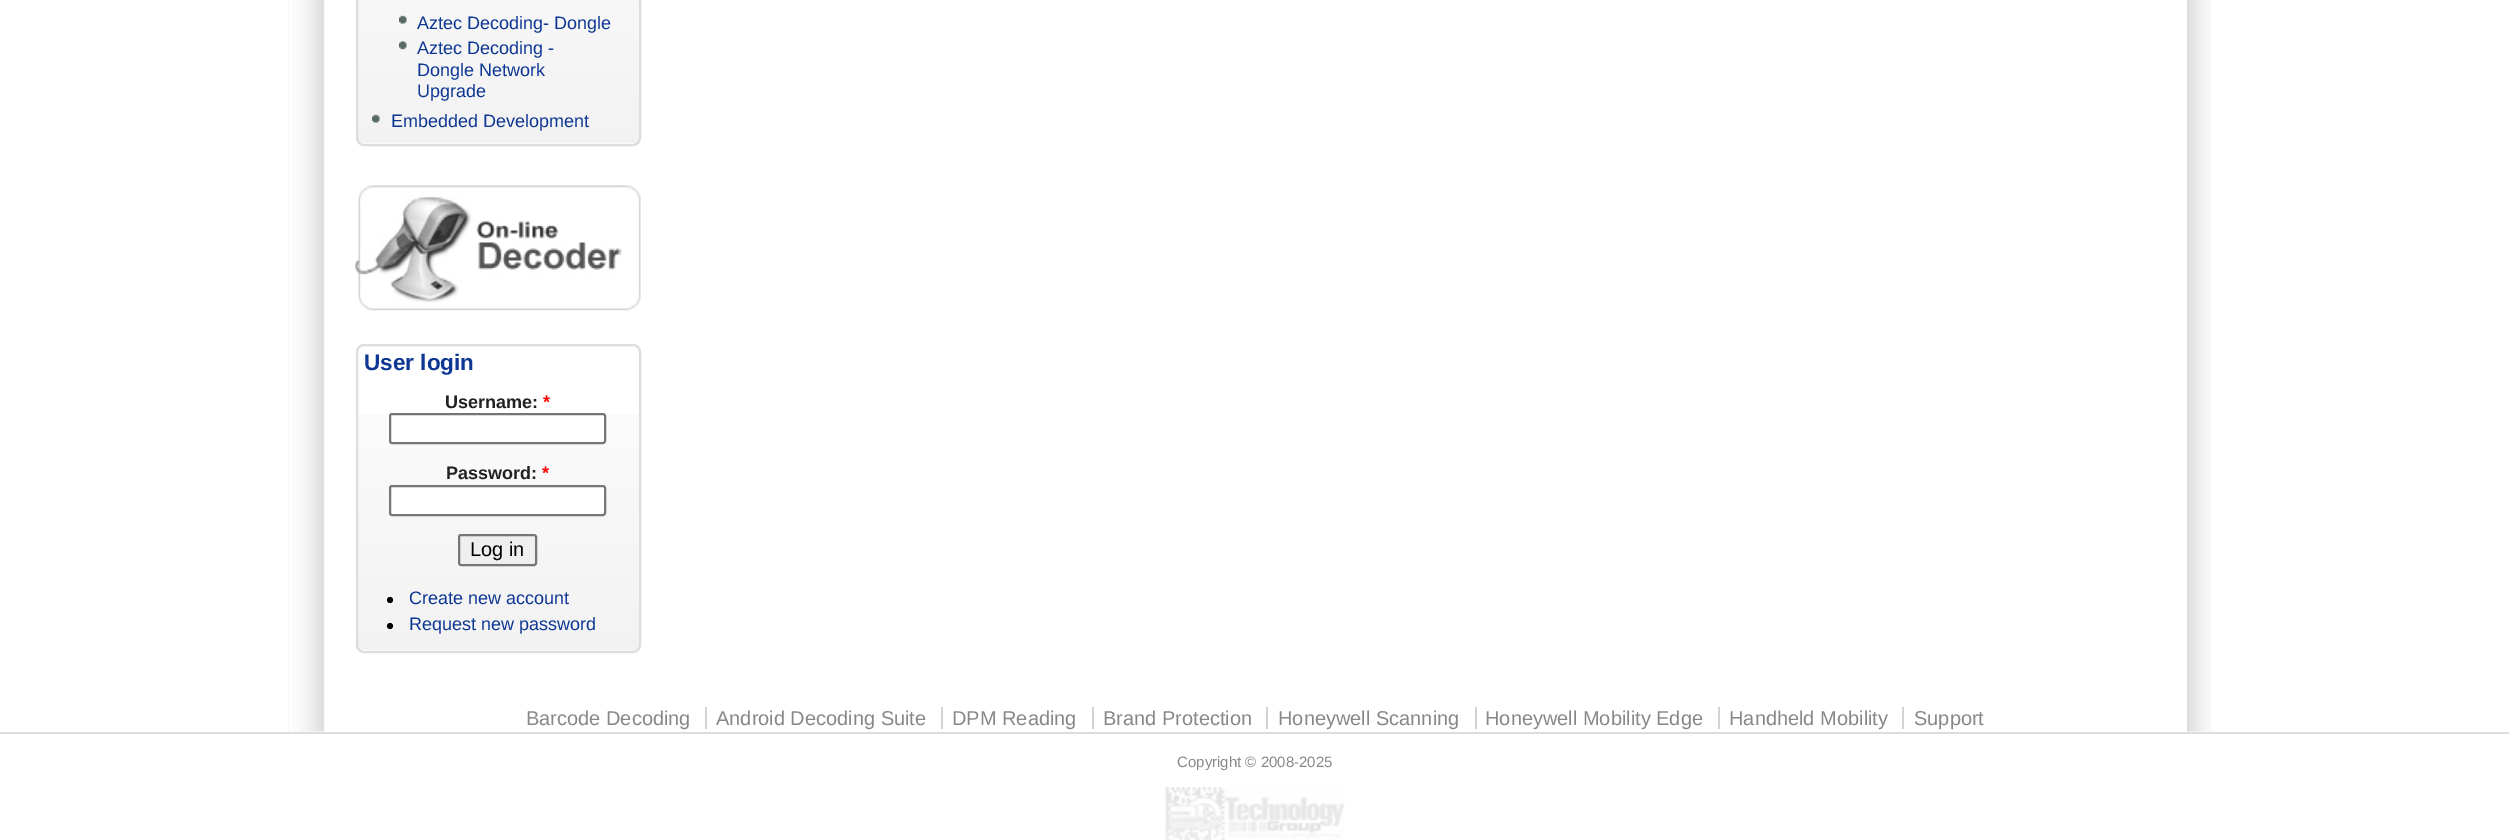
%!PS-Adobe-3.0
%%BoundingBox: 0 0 2509 840
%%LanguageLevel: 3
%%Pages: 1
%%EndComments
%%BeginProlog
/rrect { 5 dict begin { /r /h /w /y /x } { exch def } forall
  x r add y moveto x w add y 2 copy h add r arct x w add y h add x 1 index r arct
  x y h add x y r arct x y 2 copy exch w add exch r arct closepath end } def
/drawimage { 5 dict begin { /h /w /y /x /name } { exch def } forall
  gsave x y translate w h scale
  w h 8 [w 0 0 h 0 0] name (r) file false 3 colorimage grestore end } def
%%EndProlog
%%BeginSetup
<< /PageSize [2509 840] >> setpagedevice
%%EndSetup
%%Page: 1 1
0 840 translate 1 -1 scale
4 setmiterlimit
1 setgray
0 0 2509 840 rectfill
0.867 setgray
0 732 2509 2 rectfill
(images/1.raw) 288 0 37 732 drawimage
(images/2.raw) 2187 0 25 732 drawimage
(images/3.raw) 356 0 284 144 drawimage
2 setlinewidth
357 -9 283 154 7 rrect stroke
(images/4.raw) 399 15 8 9 drawimage
(images/5.raw) 399 41 8 9 drawimage
(images/6.raw) 372 114 8 9 drawimage
(images/7.raw) 355 185 286 126 drawimage
(images/8.raw) 356 414 284 237 drawimage
357 345 283 307 7 rrect stroke
1 setgray
390 414 215 29 2 rrect gsave fill grestore
0.463 setgray
stroke
1 setgray
390 486 215 29 2 rrect gsave fill grestore
0.463 setgray
stroke
0.937 setgray
459 535 77 30 2 rrect gsave fill grestore
0.463 setgray
stroke
0 setgray
newpath 390 600 3 0 360 arc closepath fill
newpath 390 626 3 0 360 arc closepath fill
0.827 setgray
705 707 2 22 rectfill
941 707 2 22 rectfill
1092 707 2 22 rectfill
1266 707 2 22 rectfill
1475 707 2 22 rectfill
1718 707 2 22 rectfill
1902 707 2 22 rectfill
(images/9.raw) 1165 787 180 53 drawimage
/LiberationSans-Regular [18 0 0 -18 0 0] selectfont
0.055 0.216 0.576 setrgbcolor
417 29 moveto (Aztec Decoding- Dongle) show
417 54 moveto (Aztec Decoding -) show
417 76 moveto (Dongle Network) show
417 97 moveto (Upgrade) show
391 127 moveto (Embedded Development) show
/LiberationSans-Bold [22.5 0 0 -22.5 0 0] selectfont
364 370 moveto (User login) show
/LiberationSans-Bold [18 0 0 -18 0 0] selectfont
0.133 setgray
445 408 moveto (Username:) show
1 0 0 setrgbcolor
543 408 moveto (*) show
0.133 setgray
446 479 moveto (Password:) show
1 0 0 setrgbcolor
542 479 moveto (*) show
/LiberationSans-Regular [20 0 0 -20 0 0] selectfont
0 setgray
470 556 moveto (Log in) show
/LiberationSans-Regular [18 0 0 -18 0 0] selectfont
0.055 0.216 0.576 setrgbcolor
409 604 moveto (Create new account) show
409 630 moveto (Request new password) show
/LiberationSans-Regular [20 0 0 -20 0 0] selectfont
0.533 setgray
526 725 moveto (Barcode Decoding) show
716 725 moveto (Android Decoding Suite) show
952 725 moveto (DPM Reading) show
1103 725 moveto (Brand Protection) show
1278 725 moveto (Honeywell Scanning) show
1485 725 moveto (Honeywell Mobility Edge) show
1729 725 moveto (Handheld Mobility) show
1914 725 moveto (Support) show
/LiberationSans-Regular [15 0 0 -15 0 0] selectfont
1177 767 moveto (Copyright © 2008-2025) show
showpage
%%EOF
